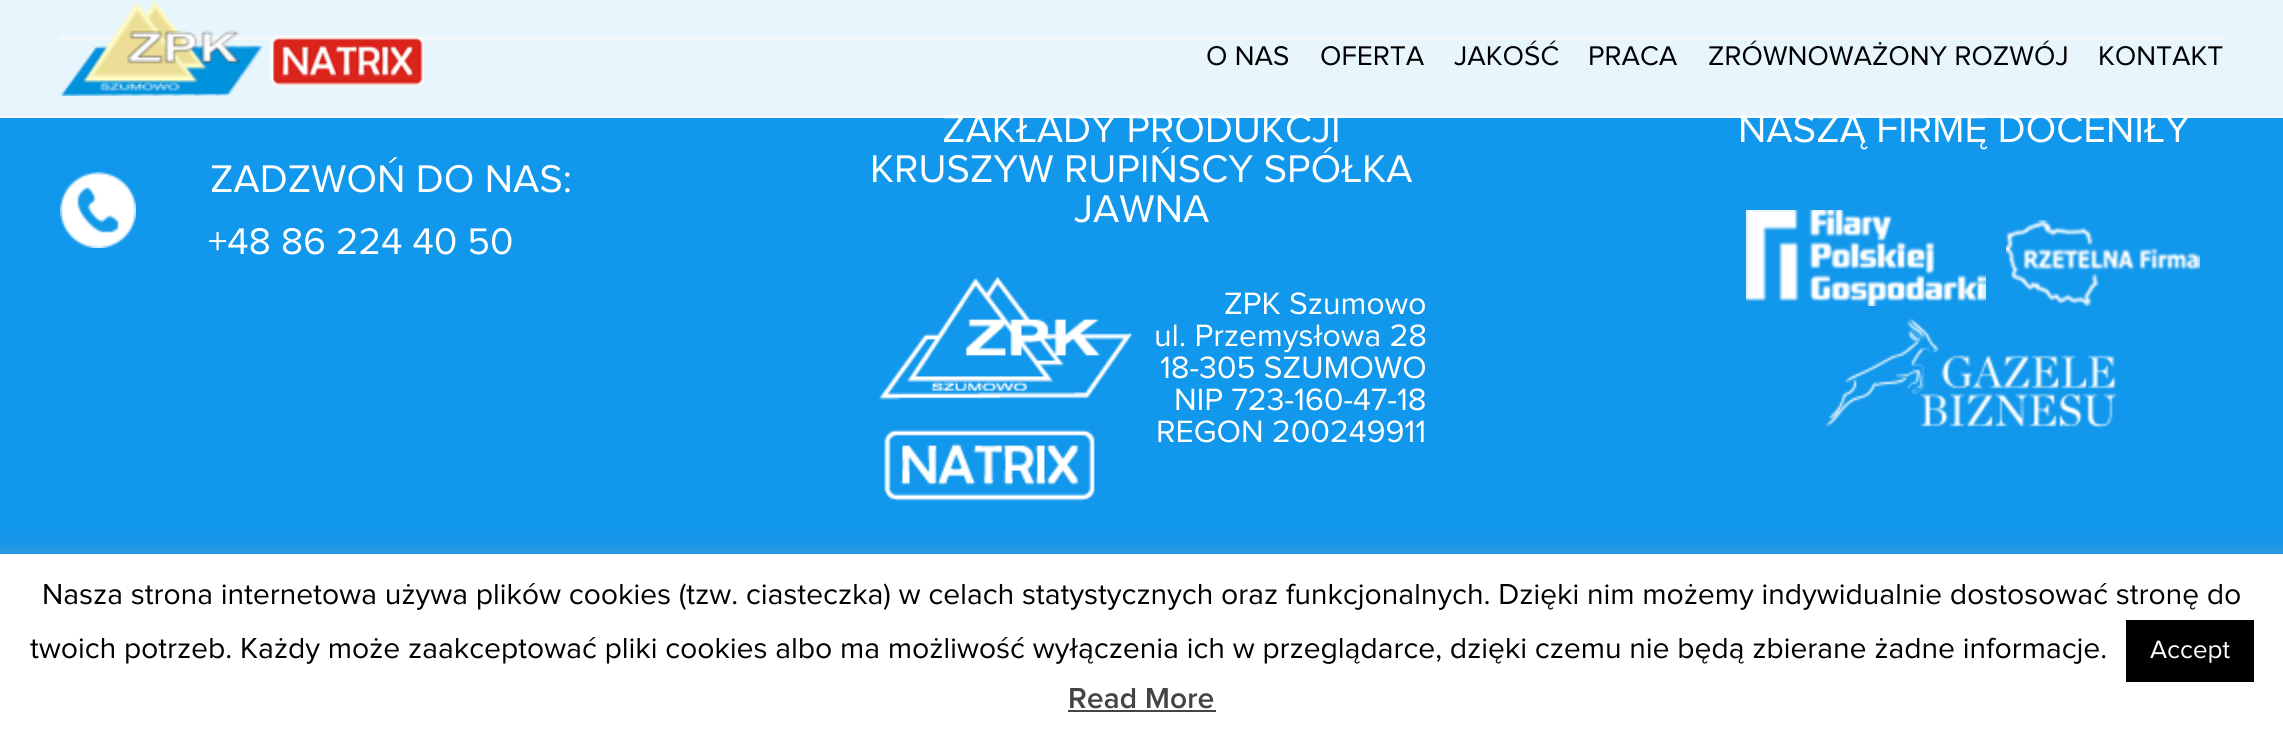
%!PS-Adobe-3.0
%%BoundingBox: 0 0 2283 737
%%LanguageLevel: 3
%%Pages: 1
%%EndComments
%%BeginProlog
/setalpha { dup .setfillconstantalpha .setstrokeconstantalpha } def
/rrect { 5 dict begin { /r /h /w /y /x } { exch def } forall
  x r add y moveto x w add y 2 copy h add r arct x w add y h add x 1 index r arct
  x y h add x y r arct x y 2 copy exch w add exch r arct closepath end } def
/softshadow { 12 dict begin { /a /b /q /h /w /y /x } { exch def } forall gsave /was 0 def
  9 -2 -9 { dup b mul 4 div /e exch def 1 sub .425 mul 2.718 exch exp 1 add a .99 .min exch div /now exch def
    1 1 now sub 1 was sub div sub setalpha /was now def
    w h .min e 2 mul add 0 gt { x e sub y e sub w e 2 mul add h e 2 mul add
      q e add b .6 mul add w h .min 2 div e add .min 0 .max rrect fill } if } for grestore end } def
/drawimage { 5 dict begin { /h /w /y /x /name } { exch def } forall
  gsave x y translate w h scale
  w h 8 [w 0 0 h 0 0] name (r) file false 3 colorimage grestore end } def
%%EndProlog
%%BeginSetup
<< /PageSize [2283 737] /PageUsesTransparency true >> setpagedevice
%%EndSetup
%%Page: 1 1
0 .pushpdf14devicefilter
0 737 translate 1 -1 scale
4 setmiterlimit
0.067 0.592 0.922 setrgbcolor
0 0 2283 737 rectfill
0.435 0.682 0.843 setrgbcolor
60 36 2164 4 rectfill
(images/12.raw) 943 114 395 29 drawimage
(images/21.raw) 1741 114 449 36 drawimage
0.9 setalpha
1 setgray
0 0 2283 118 rectfill
0.8 setalpha
0 116 2283 2 rectfill
1 setalpha
(images/1.raw) 60 0 204 96 drawimage
(images/2.raw) 270 36 154 50 drawimage
(images/3.raw) 1207 46 81 20 drawimage
(images/4.raw) 1321 46 103 20 drawimage
(images/5.raw) 1454 40 105 26 drawimage
(images/6.raw) 1590 46 87 20 drawimage
(images/7.raw) 1709 40 358 26 drawimage
(images/8.raw) 2100 46 123 20 drawimage
(images/9.raw) 60 172 76 76 drawimage
(images/10.raw) 211 157 359 36 drawimage
(images/11.raw) 209 228 303 27 drawimage
(images/13.raw) 873 147 539 36 drawimage
(images/14.raw) 1074 195 135 28 drawimage
(images/15.raw) 879 276 253 226 drawimage
(images/16.raw) 1225 292 200 23 drawimage
(images/17.raw) 1156 324 270 29 drawimage
(images/18.raw) 1160 356 265 23 drawimage
(images/19.raw) 1176 388 249 23 drawimage
(images/20.raw) 1158 420 266 23 drawimage
(images/22.raw) 1746 210 240 96 drawimage
(images/23.raw) 2006 220 194 86 drawimage
(images/24.raw) 1825 318 292 111 drawimage
0.675 0.671 0.671 setrgbcolor
0 552 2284 184 0 10 0.3 softshadow
1 setgray
0 554 2283 183 rectfill
(images/25.raw) 44 583 2196 27 drawimage
(images/26.raw) 30 637 2076 27 drawimage
0 setgray
2126 620 128 62 rectfill
(images/27.raw) 2150 640 80 23 drawimage
(images/28.raw) 1070 688 144 21 drawimage
0.267 setgray
1068 710 148 2 rectfill
.poppdf14devicefilter showpage
%%EOF
